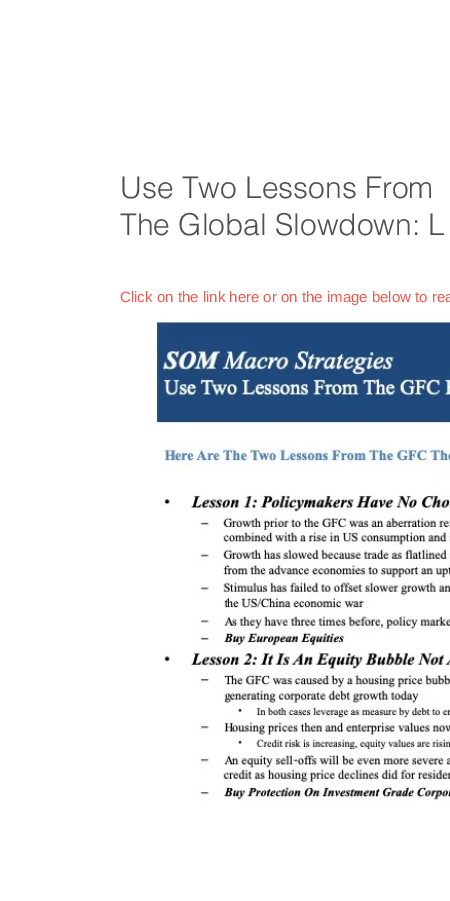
%!PS-Adobe-3.0
%%BoundingBox: 0 0 450 901
%%LanguageLevel: 3
%%Pages: 1
%%EndComments
%%BeginProlog
/drawimage { 5 dict begin { /h /w /y /x /name } { exch def } forall
  gsave x y translate w h scale
  w h 8 [w 0 0 h 0 0] name (r) file false 3 colorimage grestore end } def
%%EndProlog
%%BeginSetup
<< /PageSize [450 901] >> setpagedevice
%%EndSetup
%%Page: 1 1
0 901 translate 1 -1 scale
4 setmiterlimit
1 setgray
0 0 450 901 rectfill
(images/1.raw) 154 316 296 485 drawimage
/helvetica-Light [30 0 0 -30 0 0] selectfont
0.314 setgray
120 198 moveto (Use Two Lessons From) show
120 235 moveto (The Global Slowdown: L) show
/LiberationSans-Regular [15 0 0 -15 0 0] selectfont
0.929 0.349 0.298 setrgbcolor
120 302 moveto (Click on the link here or on the image below to rea) show
showpage
%%EOF
